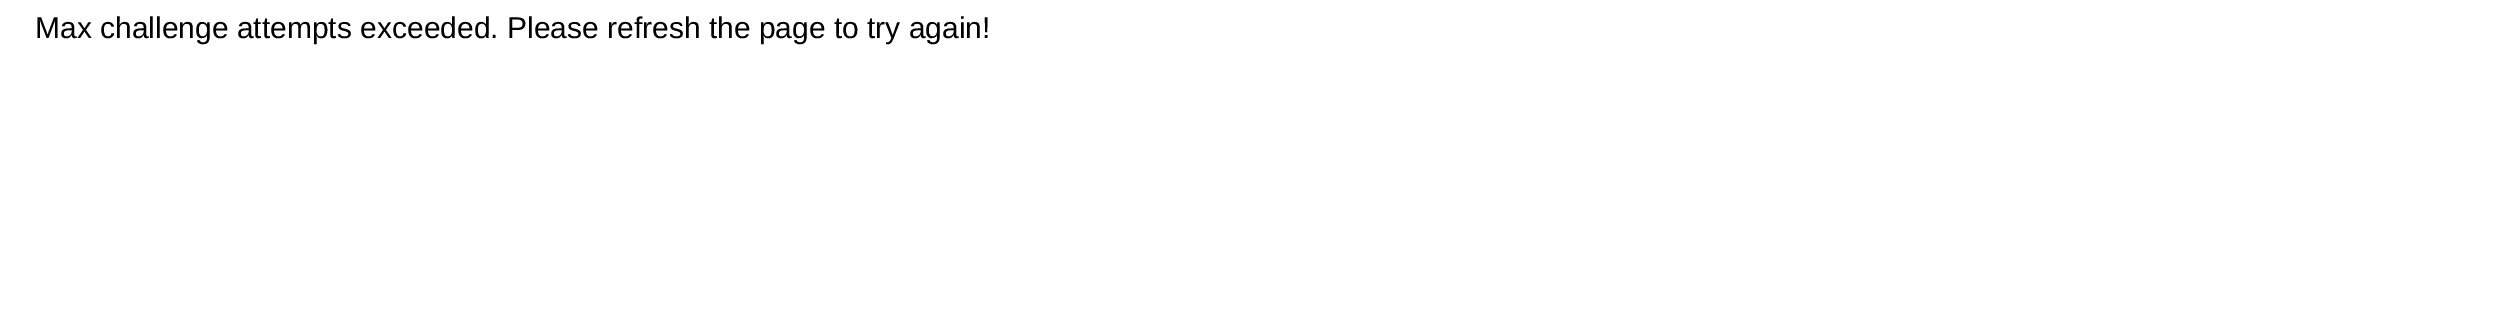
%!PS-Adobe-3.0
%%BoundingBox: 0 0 2506 328
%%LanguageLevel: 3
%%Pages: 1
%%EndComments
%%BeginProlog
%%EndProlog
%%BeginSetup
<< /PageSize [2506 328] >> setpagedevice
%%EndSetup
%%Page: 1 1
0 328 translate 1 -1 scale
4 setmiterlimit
1 setgray
0 0 2506 328 rectfill
/LiberationSans-Regular [30 0 0 -30 0 0] selectfont
0 setgray
35 38 moveto (Max challenge attempts exceeded. Please refresh the page to try again!) show
showpage
%%EOF
